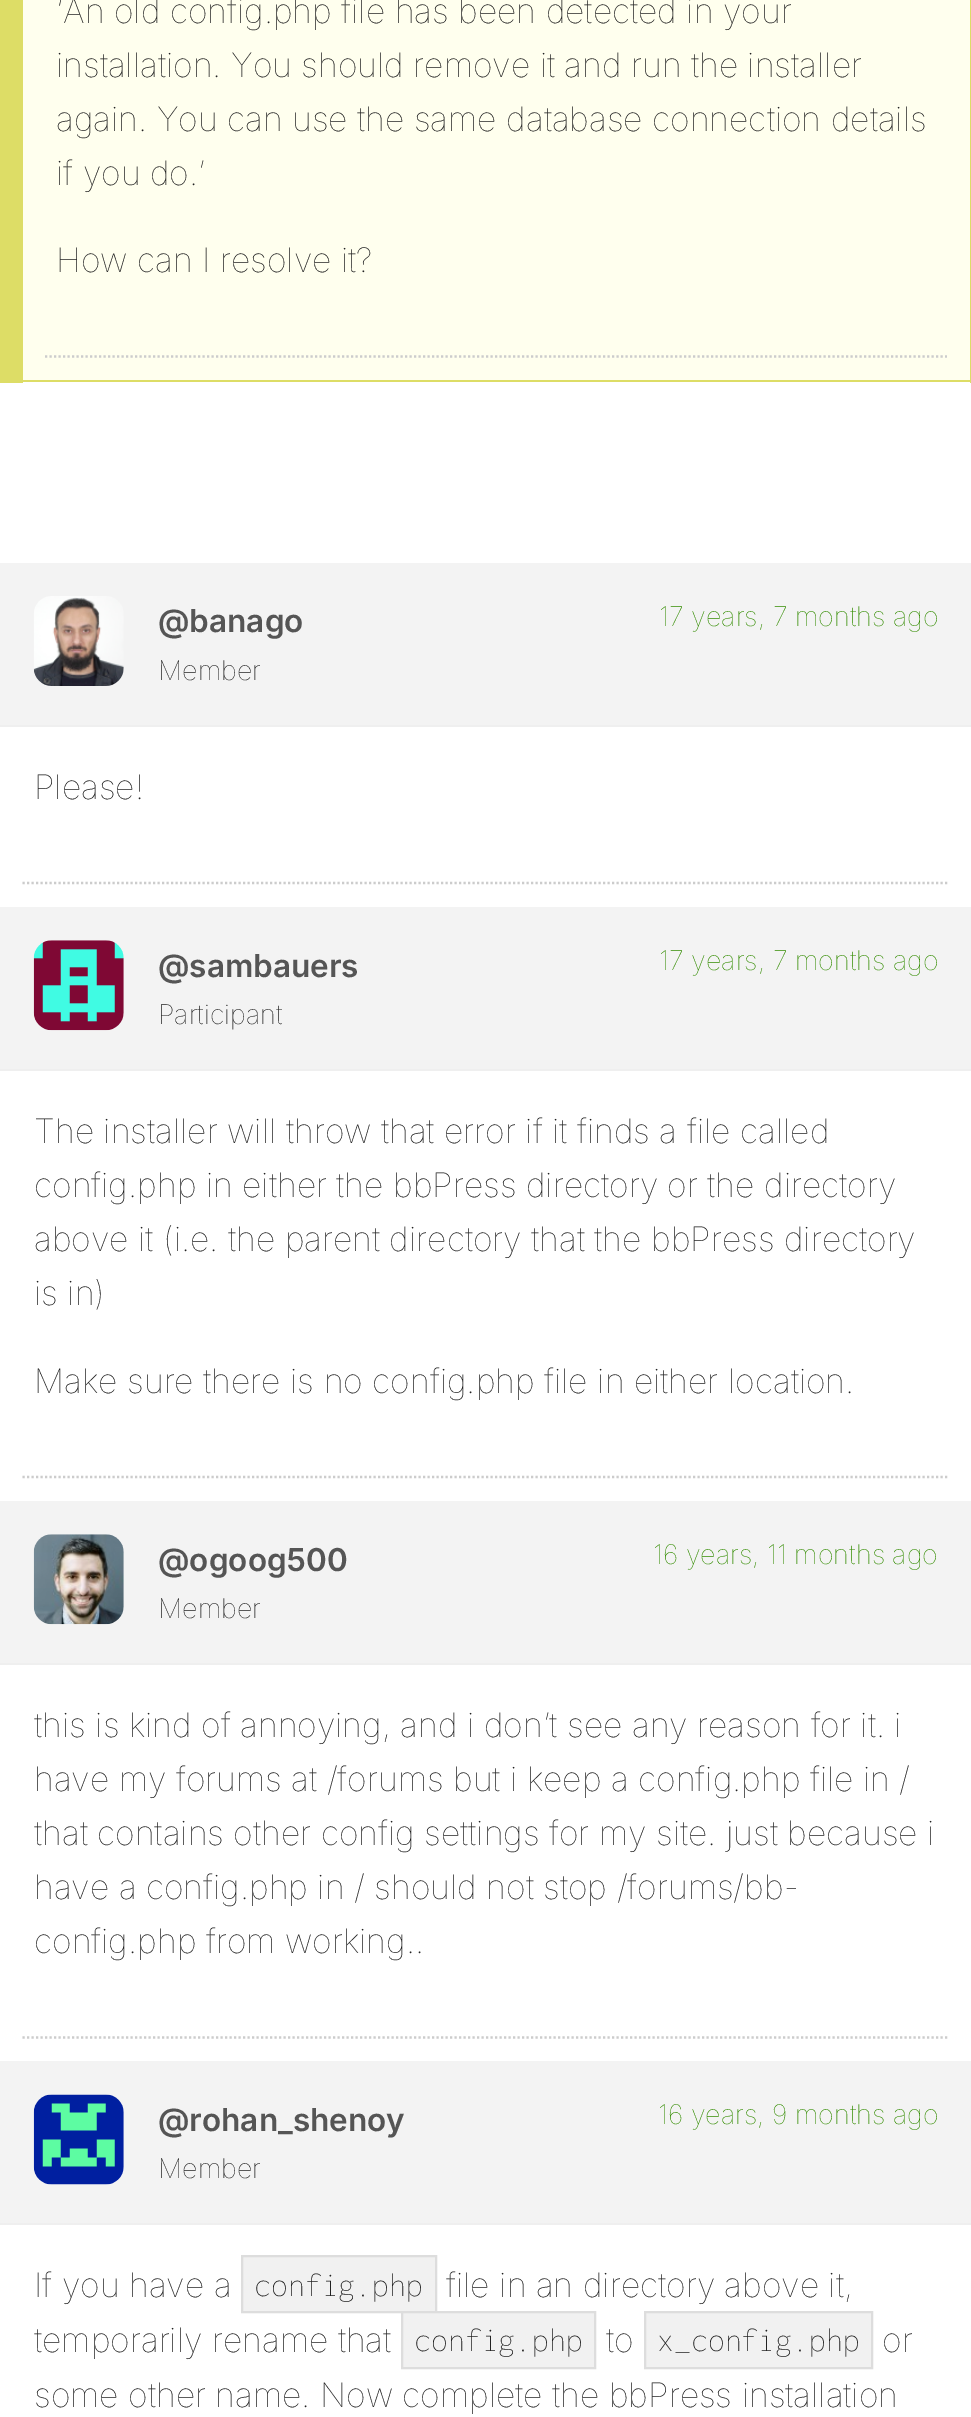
%!PS-Adobe-3.0
%%BoundingBox: 0 0 971 2417
%%LanguageLevel: 3
%%Pages: 1
%%EndComments
%%BeginProlog
/drawimage { 5 dict begin { /h /w /y /x /name } { exch def } forall
  gsave x y translate w h scale
  w h 8 [w 0 0 h 0 0] name (r) file false 3 colorimage grestore end } def
%%EndProlog
%%BeginSetup
<< /PageSize [971 2417] >> setpagedevice
%%EndSetup
%%Page: 1 1
0 2417 translate 1 -1 scale
4 setmiterlimit
1 setgray
0 0 971 2417 rectfill
0.867 0.867 0.4 setrgbcolor
970 0 1 383 rectfill
23 380 948 2 rectfill
0 0 23 383 rectfill
1 1 0.933 setrgbcolor
23 0 947 380 rectfill
0.8 setgray
2.2 setlinewidth
[2.25 2.25] 0 setdash
newpath 45 356.5 moveto 947 356.5 lineto stroke
0.953 setgray
0 563 971 162 rectfill
0.937 setgray
0 725 971 2 rectfill
(images/1.raw) 33 596 91 90 drawimage
0.8 setgray
newpath 22.5 883 moveto 949.5 883 lineto stroke
0.953 setgray
0 907 971 162 rectfill
0.937 setgray
0 1069 971 2 rectfill
(images/2.raw) 33 940 91 91 drawimage
0.8 setgray
newpath 22.5 1477 moveto 949.5 1477 lineto stroke
0.953 setgray
0 1501 971 162 rectfill
0.937 setgray
0 1663 971 2 rectfill
(images/3.raw) 33 1534 91 91 drawimage
0.8 setgray
newpath 22.5 2037.5 moveto 949.5 2037.5 lineto stroke
0.953 setgray
0 2061 971 162 rectfill
0.937 setgray
0 2223 971 2 rectfill
(images/4.raw) 33 2094 91 91 drawimage
0.945 setgray
newpath 242 2256 moveto 436 2256 lineto 436 2312 lineto 242 2312 lineto closepath gsave fill grestore
0.867 setgray
2 setlinewidth
[] 0 setdash
stroke
0.945 setgray
newpath 402 2312 moveto 595 2312 lineto 595 2368 lineto 402 2368 lineto closepath gsave fill grestore
0.867 setgray
stroke
0.945 setgray
newpath 645 2312 moveto 872 2312 lineto 872 2368 lineto 645 2368 lineto closepath gsave fill grestore
0.867 setgray
stroke
/Inter-Thin [33.75 0 0 -33.75 0 0] selectfont
0.133 setgray
56 23 moveto (‘An old config.php file has been detected in your) show
56 77 moveto (installation. You should remove it and run the installer) show
56 131 moveto (again. You can use the same database connection details) show
56 185 moveto (if you do.’) show
56 272 moveto (How can I resolve it?) show
/Inter-SemiBold [31.5 0 0 -31.5 0 0] selectfont
0.333 setgray
158 632 moveto (@banago) show
/Inter-Thin [27 0 0 -27 0 0] selectfont
0.133 setgray
158 680 moveto (Member) show
0.196 0.549 0 setrgbcolor
659 626 moveto (17 years, 7 months ago) show
/Inter-Thin [33.75 0 0 -33.75 0 0] selectfont
0.133 setgray
34 799 moveto (Please!) show
/Inter-SemiBold [31.5 0 0 -31.5 0 0] selectfont
0.333 setgray
158 977 moveto (@sambauers) show
/Inter-Thin [27 0 0 -27 0 0] selectfont
0.133 setgray
158 1024 moveto (Participant) show
0.196 0.549 0 setrgbcolor
659 970 moveto (17 years, 7 months ago) show
/Inter-Thin [33.75 0 0 -33.75 0 0] selectfont
0.133 setgray
34 1143 moveto (The installer will throw that error if it finds a file called) show
34 1197 moveto (config.php in either the bbPress directory or the directory) show
34 1251 moveto (above it \(i.e. the parent directory that the bbPress directory) show
34 1305 moveto (is in\)) show
34 1393 moveto (Make sure there is no config.php file in either location.) show
/Inter-SemiBold [31.5 0 0 -31.5 0 0] selectfont
0.333 setgray
158 1571 moveto (@ogoog500) show
/Inter-Thin [27 0 0 -27 0 0] selectfont
0.133 setgray
158 1618 moveto (Member) show
0.196 0.549 0 setrgbcolor
653 1564 moveto (16 years, 11 months ago) show
/Inter-Thin [33.75 0 0 -33.75 0 0] selectfont
0.133 setgray
34 1737 moveto (this is kind of annoying, and i don’t see any reason for it. i) show
34 1791 moveto (have my forums at /forums but i keep a config.php file in /) show
34 1845 moveto (that contains other config settings for my site. just because i) show
34 1899 moveto (have a config.php in / should not stop /forums/bb-) show
34 1953 moveto (config.php from working..) show
/Inter-SemiBold [31.5 0 0 -31.5 0 0] selectfont
0.333 setgray
158 2131 moveto (@rohan_shenoy) show
/Inter-Thin [27 0 0 -27 0 0] selectfont
0.133 setgray
158 2178 moveto (Member) show
0.196 0.549 0 setrgbcolor
658 2124 moveto (16 years, 9 months ago) show
/Inter-Thin [33.75 0 0 -33.75 0 0] selectfont
0.133 setgray
34 2297 moveto (If you have a) show
/Inconsolata-ExtraLight [33.75 0 0 -33.75 0 0] selectfont
254 2296 moveto (config.php) show
/Inter-Thin [33.75 0 0 -33.75 0 0] selectfont
446 2297 moveto (file in an directory above it,) show
34 2352 moveto (temporarily rename that) show
/Inconsolata-ExtraLight [33.75 0 0 -33.75 0 0] selectfont
414 2351 moveto (config.php) show
/Inter-Thin [33.75 0 0 -33.75 0 0] selectfont
606 2352 moveto (to) show
/Inconsolata-ExtraLight [33.75 0 0 -33.75 0 0] selectfont
657 2351 moveto (x_config.php) show
/Inter-Thin [33.75 0 0 -33.75 0 0] selectfont
882 2352 moveto (or) show
34 2407 moveto (some other name. Now complete the bbPress installation) show
showpage
%%EOF
